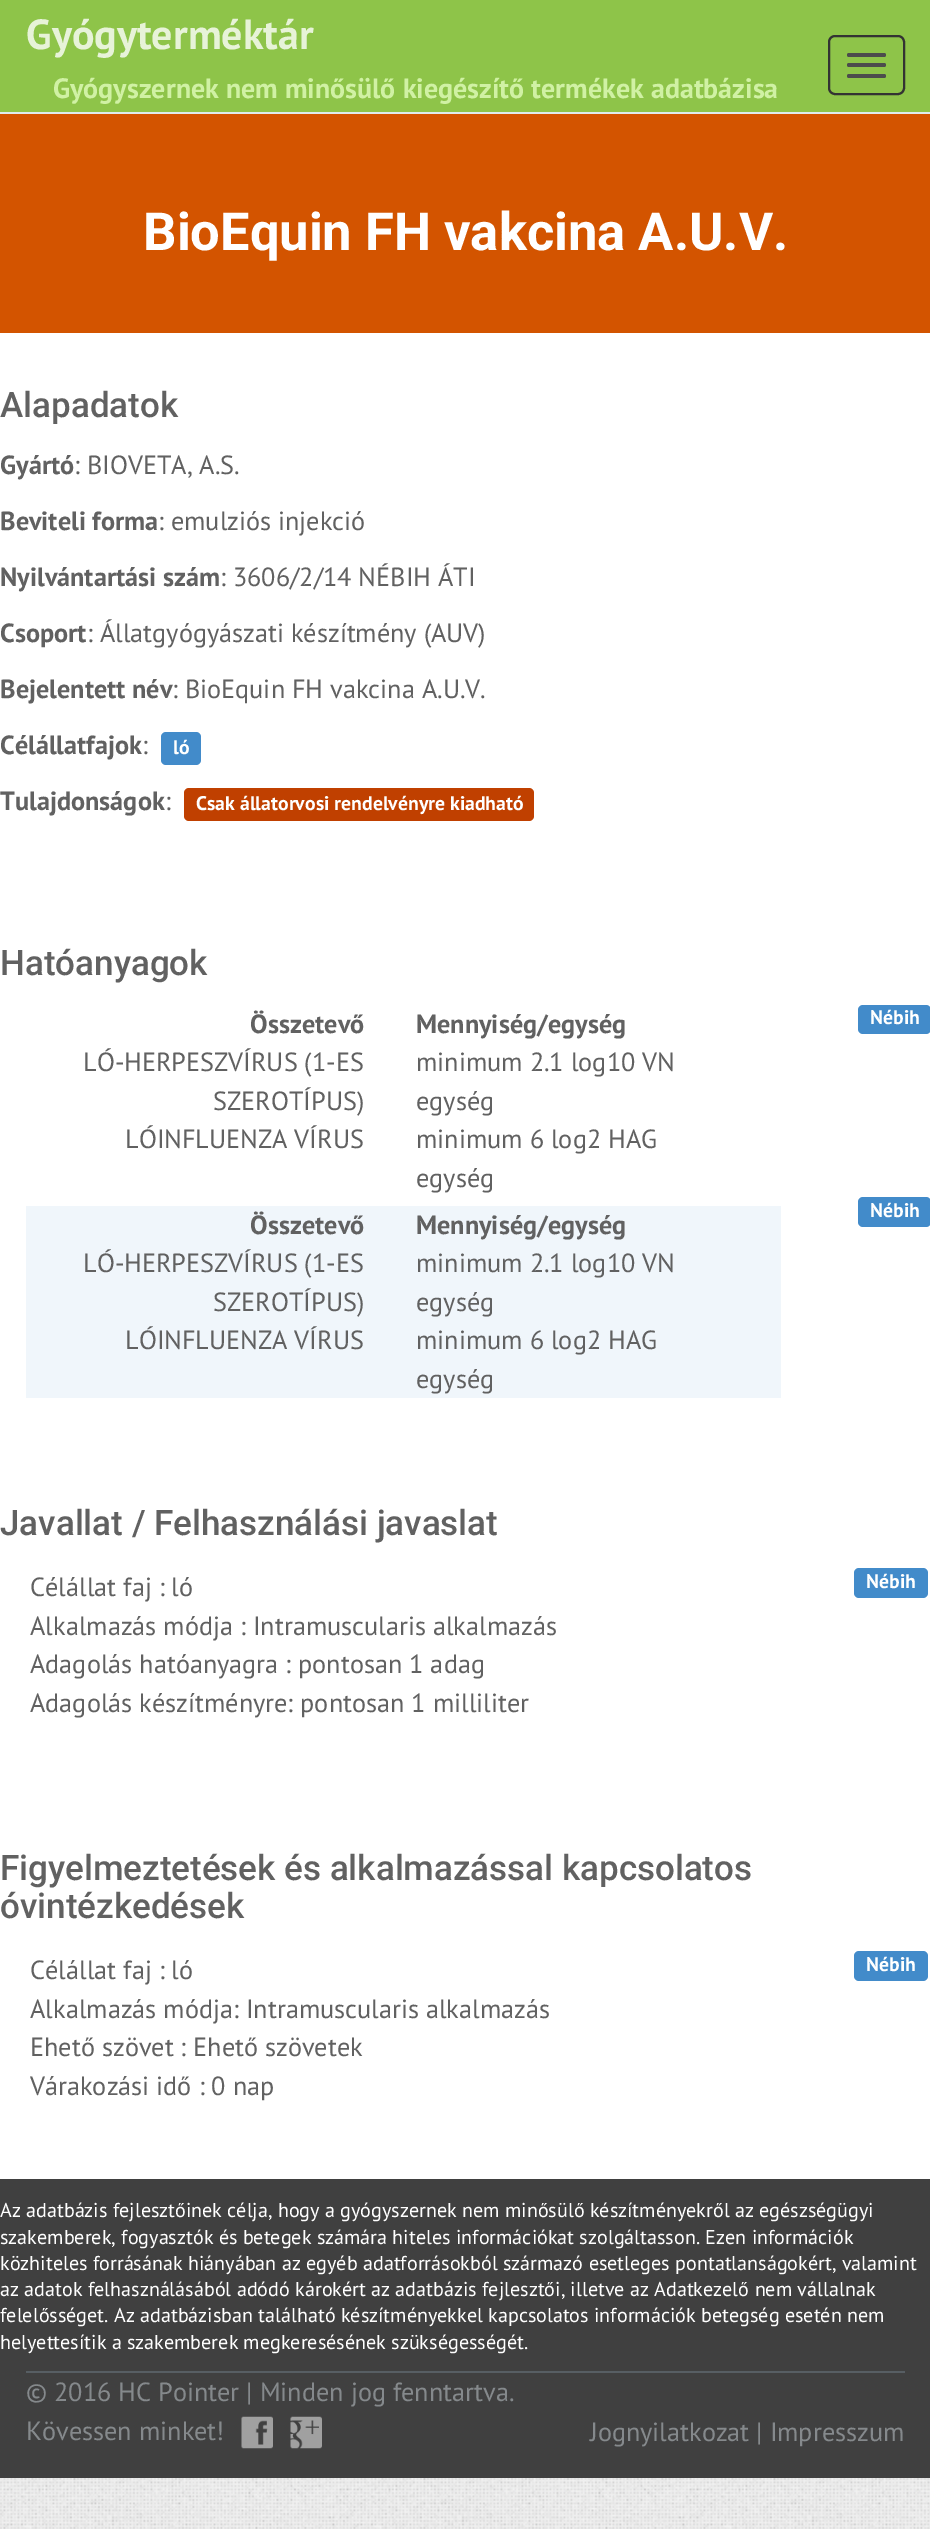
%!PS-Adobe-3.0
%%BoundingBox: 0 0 930 2529
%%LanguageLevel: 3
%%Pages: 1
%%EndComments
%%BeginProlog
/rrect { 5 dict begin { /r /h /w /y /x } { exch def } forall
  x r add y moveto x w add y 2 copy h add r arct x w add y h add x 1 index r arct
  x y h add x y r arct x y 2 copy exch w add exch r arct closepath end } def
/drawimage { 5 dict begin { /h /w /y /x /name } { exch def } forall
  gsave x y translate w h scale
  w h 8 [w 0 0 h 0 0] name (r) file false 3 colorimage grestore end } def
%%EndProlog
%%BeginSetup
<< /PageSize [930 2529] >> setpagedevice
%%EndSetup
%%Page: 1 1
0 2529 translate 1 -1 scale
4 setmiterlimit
1 setgray
0 0 930 2529 rectfill
(images/1.raw) 0 2478 930 51 drawimage
0.557 0.769 0.286 setrgbcolor
0 0 930 112 rectfill
0.878 0.929 0.929 setrgbcolor
0 112 930 2 rectfill
0.2 setgray
2 setlinewidth
829 36 75 58 6 rrect stroke
0.298 setgray
847 53 39 4 2 rrect fill
847 63 39 4 2 rrect fill
847 74 39 4 2 rrect fill
0.827 0.329 0 setrgbcolor
0 114 930 219 rectfill
0.259 0.545 0.792 setrgbcolor
161 732 40 33 5 rrect fill
0.753 0.251 0 setrgbcolor
184 788 350 33 5 rrect fill
0.259 0.545 0.792 setrgbcolor
858 1005 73 29 5 rrect fill
0.941 0.965 0.984 setrgbcolor
26 1206 755 192 rectfill
0.259 0.545 0.792 setrgbcolor
858 1197 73 30 5 rrect fill
854 1568 74 30 5 rrect fill
854 1951 74 30 5 rrect fill
0.251 setgray
0 2179 930 299 rectfill
0.341 0.369 0.388 setrgbcolor
26 2371 879 2 rectfill
(images/2.raw) 241 2416 32 33 drawimage
(images/3.raw) 290 2416 32 33 drawimage
/PTSans-Bold [42 0 0 -42 0 0] selectfont
0.906 0.953 0.847 setrgbcolor
26 49 moveto (Gyógyterméktár) show
/PTSans-Bold [28 0 0 -28 0 0] selectfont
0.816 0.945 0.643 setrgbcolor
53 98 moveto (Gyógyszernek nem minősülő kiegészítő termékek adatbázisa) show
/Roboto-Bold [52.5 0 0 -52.5 0 0] selectfont
1 setgray
143 250 moveto (BioEquin FH vakcina A.U.V.) show
/Roboto-Medium [35 0 0 -35 0 0] selectfont
0.38 setgray
0 417 moveto (Alapadatok) show
/PTSans-Bold [26.25 0 0 -26.25 0 0] selectfont
0 474 moveto (Gyártó) show
/PTSans-Regular [26.25 0 0 -26.25 0 0] selectfont
74 474 moveto (: BIOVETA, A.S.) show
/PTSans-Bold [26.25 0 0 -26.25 0 0] selectfont
0 530 moveto (Beviteli forma) show
/PTSans-Regular [26.25 0 0 -26.25 0 0] selectfont
158 530 moveto (: emulziós injekció) show
/PTSans-Bold [26.25 0 0 -26.25 0 0] selectfont
0 586 moveto (Nyilvántartási szám) show
/PTSans-Regular [26.25 0 0 -26.25 0 0] selectfont
220 586 moveto (: 3606/2/14 NÉBIH ÁTI) show
/PTSans-Bold [26.25 0 0 -26.25 0 0] selectfont
0 642 moveto (Csoport) show
/PTSans-Regular [26.25 0 0 -26.25 0 0] selectfont
87 642 moveto (: Állatgyógyászati készítmény \(AUV\)) show
/PTSans-Bold [26.25 0 0 -26.25 0 0] selectfont
0 698 moveto (Bejelentett név) show
/PTSans-Regular [26.25 0 0 -26.25 0 0] selectfont
172 698 moveto (: BioEquin FH vakcina A.U.V.) show
/PTSans-Bold [26.25 0 0 -26.25 0 0] selectfont
0 754 moveto (Célállatfajok) show
/PTSans-Regular [26.25 0 0 -26.25 0 0] selectfont
142 754 moveto (:) show
/PTSans-Bold [19.75 0 0 -19.75 0 0] selectfont
1 setgray
173 754 moveto (ló) show
/PTSans-Bold [26.25 0 0 -26.25 0 0] selectfont
0.38 setgray
0 810 moveto (Tulajdonságok) show
/PTSans-Regular [26.25 0 0 -26.25 0 0] selectfont
165 810 moveto (:) show
/PTSans-Bold [19.75 0 0 -19.75 0 0] selectfont
1 setgray
196 810 moveto (Csak állatorvosi rendelvényre kiadható) show
/Roboto-Medium [35 0 0 -35 0 0] selectfont
0.38 setgray
0 975 moveto (Hatóanyagok) show
/PTSans-Bold [26.25 0 0 -26.25 0 0] selectfont
250 1033 moveto (Összetevő) show
416 1033 moveto (Mennyiség/egység) show
/PTSans-Regular [26.25 0 0 -26.25 0 0] selectfont
83 1071 moveto (LÓ-HERPESZVÍRUS \(1-ES) show
213 1110 moveto (SZEROTÍPUS\)) show
416 1071 moveto (minimum 2.1 log10 VN) show
416 1110 moveto (egység) show
125 1148 moveto (LÓINFLUENZA VÍRUS) show
416 1148 moveto (minimum 6 log2 HAG) show
416 1187 moveto (egység) show
/PTSans-Bold [19.75 0 0 -19.75 0 0] selectfont
1 setgray
870 1024 moveto (Nébih) show
/PTSans-Bold [26.25 0 0 -26.25 0 0] selectfont
0.38 setgray
250 1234 moveto (Összetevő) show
416 1234 moveto (Mennyiség/egység) show
/PTSans-Regular [26.25 0 0 -26.25 0 0] selectfont
83 1272 moveto (LÓ-HERPESZVÍRUS \(1-ES) show
213 1311 moveto (SZEROTÍPUS\)) show
416 1272 moveto (minimum 2.1 log10 VN) show
416 1311 moveto (egység) show
125 1349 moveto (LÓINFLUENZA VÍRUS) show
416 1349 moveto (minimum 6 log2 HAG) show
416 1388 moveto (egység) show
/PTSans-Bold [19.75 0 0 -19.75 0 0] selectfont
1 setgray
870 1217 moveto (Nébih) show
/Roboto-Medium [35 0 0 -35 0 0] selectfont
0.38 setgray
0 1535 moveto (Javallat / Felhasználási javaslat) show
/PTSans-Regular [26.25 0 0 -26.25 0 0] selectfont
30 1596 moveto (Célállat faj : ló) show
30 1635 moveto (Alkalmazás módja : Intramuscularis alkalmazás) show
30 1673 moveto (Adagolás hatóanyagra : pontosan 1 adag) show
30 1712 moveto (Adagolás készítményre: pontosan 1 milliliter) show
/PTSans-Bold [19.75 0 0 -19.75 0 0] selectfont
1 setgray
866 1588 moveto (Nébih) show
/Roboto-Medium [35 0 0 -35 0 0] selectfont
0.38 setgray
0 1880 moveto (Figyelmeztetések és alkalmazással kapcsolatos) show
0 1918 moveto (óvintézkedések) show
/PTSans-Regular [26.25 0 0 -26.25 0 0] selectfont
30 1979 moveto (Célállat faj : ló) show
30 2018 moveto (Alkalmazás módja: Intramuscularis alkalmazás) show
30 2056 moveto (Ehető szövet : Ehető szövetek) show
30 2095 moveto (Várakozási idő : 0 nap) show
/PTSans-Bold [19.75 0 0 -19.75 0 0] selectfont
1 setgray
866 1971 moveto (Nébih) show
/PTSans-Regular [20.1 0 0 -20.1 0 0] selectfont
0 2217 moveto (Az adatbázis fejlesztőinek célja, hogy a gyógyszernek nem minősülő készítményekről az egészségügyi) show
0 2244 moveto (szakemberek, fogyasztók és betegek számára hiteles információkat szolgáltasson. Ezen információk) show
0 2270 moveto (közhiteles forrásának hiányában az egyéb adatforrásokból származó esetleges pontatlanságokért, valamint) show
0 2296 moveto (az adatok felhasználásából adódó károkért az adatbázis fejlesztői, illetve az Adatkezelő nem vállalnak) show
0 2322 moveto (felelősséget. Az adatbázisban található készítményekkel kapcsolatos információk betegség esetén nem) show
0 2349 moveto (helyettesítik a szakemberek megkeresésének szükségességét.) show
/PTSans-Regular [26.25 0 0 -26.25 0 0] selectfont
0.522 0.537 0.549 setrgbcolor
26 2401 moveto (© 2016 HC Pointer | Minden jog fenntartva.) show
26 2440 moveto (Kövessen minket!) show
590 2441 moveto (Jognyilatkozat | Impresszum) show
showpage
%%EOF
